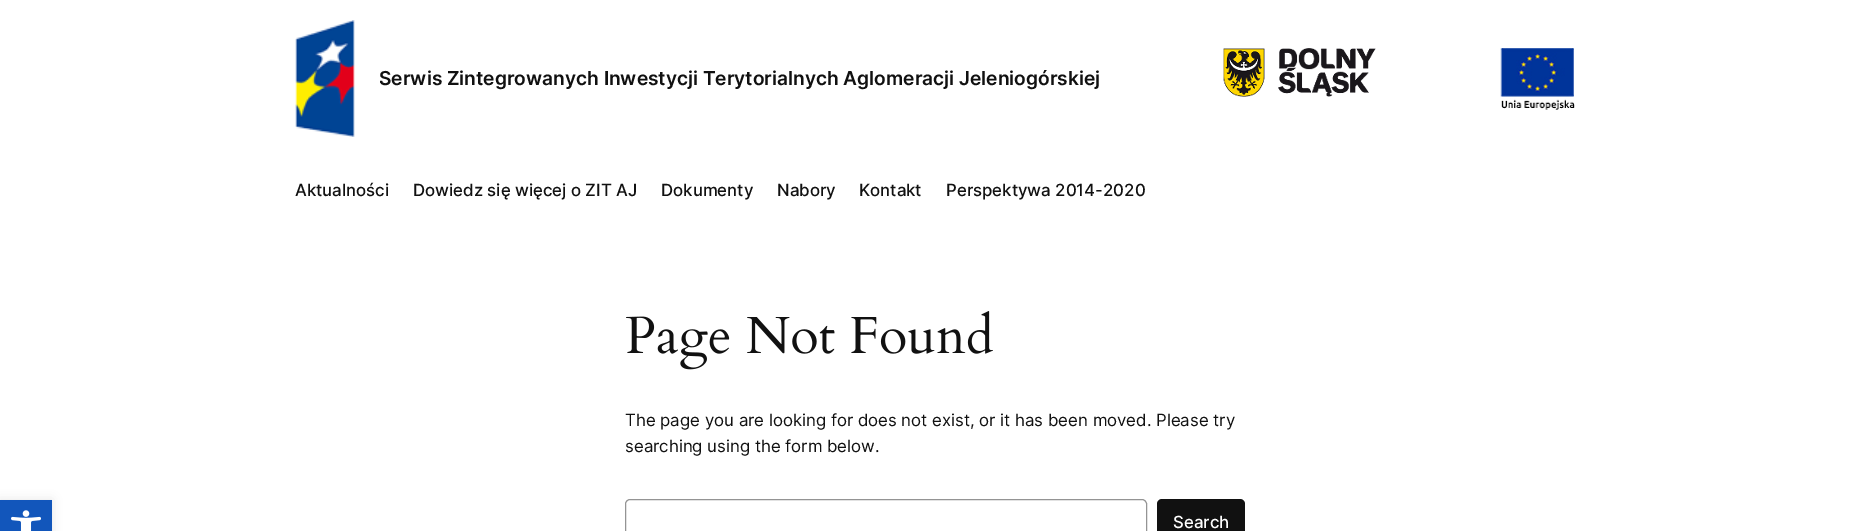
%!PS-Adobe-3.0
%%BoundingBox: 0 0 1870 531
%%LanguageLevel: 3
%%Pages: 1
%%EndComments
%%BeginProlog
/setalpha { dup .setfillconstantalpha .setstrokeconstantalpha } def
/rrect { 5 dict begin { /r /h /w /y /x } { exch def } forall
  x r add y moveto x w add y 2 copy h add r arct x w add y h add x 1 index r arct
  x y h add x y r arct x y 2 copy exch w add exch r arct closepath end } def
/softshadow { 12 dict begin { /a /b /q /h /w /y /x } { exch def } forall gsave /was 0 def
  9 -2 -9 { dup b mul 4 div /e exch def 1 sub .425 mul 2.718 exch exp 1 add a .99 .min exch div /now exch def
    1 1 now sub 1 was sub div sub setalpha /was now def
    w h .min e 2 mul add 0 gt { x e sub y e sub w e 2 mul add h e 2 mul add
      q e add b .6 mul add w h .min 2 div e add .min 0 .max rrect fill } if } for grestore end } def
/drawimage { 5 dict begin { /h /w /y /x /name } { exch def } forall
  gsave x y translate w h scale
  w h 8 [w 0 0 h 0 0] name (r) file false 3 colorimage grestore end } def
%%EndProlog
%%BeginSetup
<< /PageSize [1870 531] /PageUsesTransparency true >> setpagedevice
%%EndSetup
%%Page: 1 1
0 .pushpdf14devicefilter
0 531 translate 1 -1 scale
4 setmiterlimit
1 setgray
0 0 1870 531 rectfill
0 setgray
0 500 52 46 0 5 0.1 softshadow
0.071 0.337 0.733 setrgbcolor
0 500 52 31 rectfill
(images/1.raw) 11 510 30 21 drawimage
(images/2.raw) 295 20 60 117 drawimage
(images/3.raw) 1223 48 153 49 drawimage
(images/4.raw) 1500 48 75 62 drawimage
(images/5.raw) 626 311 367 59 drawimage
0.58 setgray
625.5 499.5 521 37 4.5 rrect stroke
0.067 setgray
1157 499 88 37 5 rrect fill
/Inter-SemiBold [19.2 0 0 -19.2 0 0] selectfont
379 85 moveto (Serwis Zintegrowanych Inwestycji Terytorialnych Aglomeracji Jeleniogórskiej) show
/Inter-Medium [16.8 0 0 -16.8 0 0] selectfont
295 196 moveto (Aktualności) show
413 196 moveto (Dowiedz się więcej o ZIT AJ) show
661 196 moveto (Dokumenty) show
777 196 moveto (Nabory) show
859 196 moveto (Kontakt) show
946 196 moveto (Perspektywa 2014-2020) show
/Inter-Regular [16.8 0 0 -16.8 0 0] selectfont
625 426 moveto (The page you are looking for does not exist, or it has been moved. Please try) show
625 452 moveto (searching using the form below.) show
/Inter-Medium [16.8 0 0 -16.8 0 0] selectfont
1 setgray
1173 528 moveto (Search) show
.poppdf14devicefilter showpage
%%EOF
